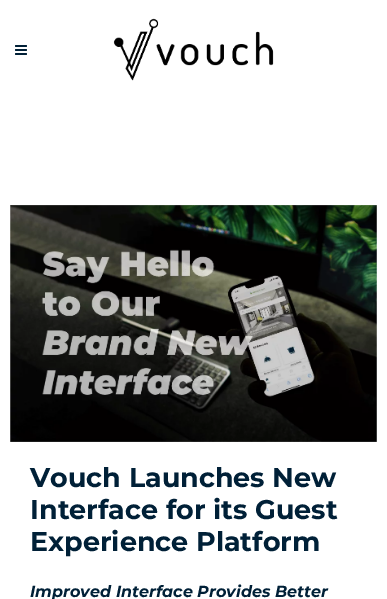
%!PS-Adobe-3.0
%%BoundingBox: 0 0 387 599
%%LanguageLevel: 3
%%Pages: 1
%%EndComments
%%BeginProlog
/drawimage { 5 dict begin { /h /w /y /x /name } { exch def } forall
  gsave x y translate w h scale
  w h 8 [w 0 0 h 0 0] name (r) file false 3 colorimage grestore end } def
%%EndProlog
%%BeginSetup
<< /PageSize [387 599] >> setpagedevice
%%EndSetup
%%Page: 1 1
0 599 translate 1 -1 scale
4 setmiterlimit
1 setgray
0 0 387 599 rectfill
(images/1.raw) 15 45 12 10 drawimage
(images/2.raw) 113 18 161 63 drawimage
(images/3.raw) 10 205 367 237 drawimage
/Montserrat-Bold [27 0 0 -27 0 0] selectfont
0 0.125 0.216 setrgbcolor
30 487 moveto (Vouch Launches New) show
30 519 moveto (Interface for its Guest) show
30 551 moveto (Experience Platform) show
/Montserrat-BoldItalic [16 0 0 -16 0 0] selectfont
30 597 moveto (Improved Interface Provides Better) show
showpage
%%EOF
